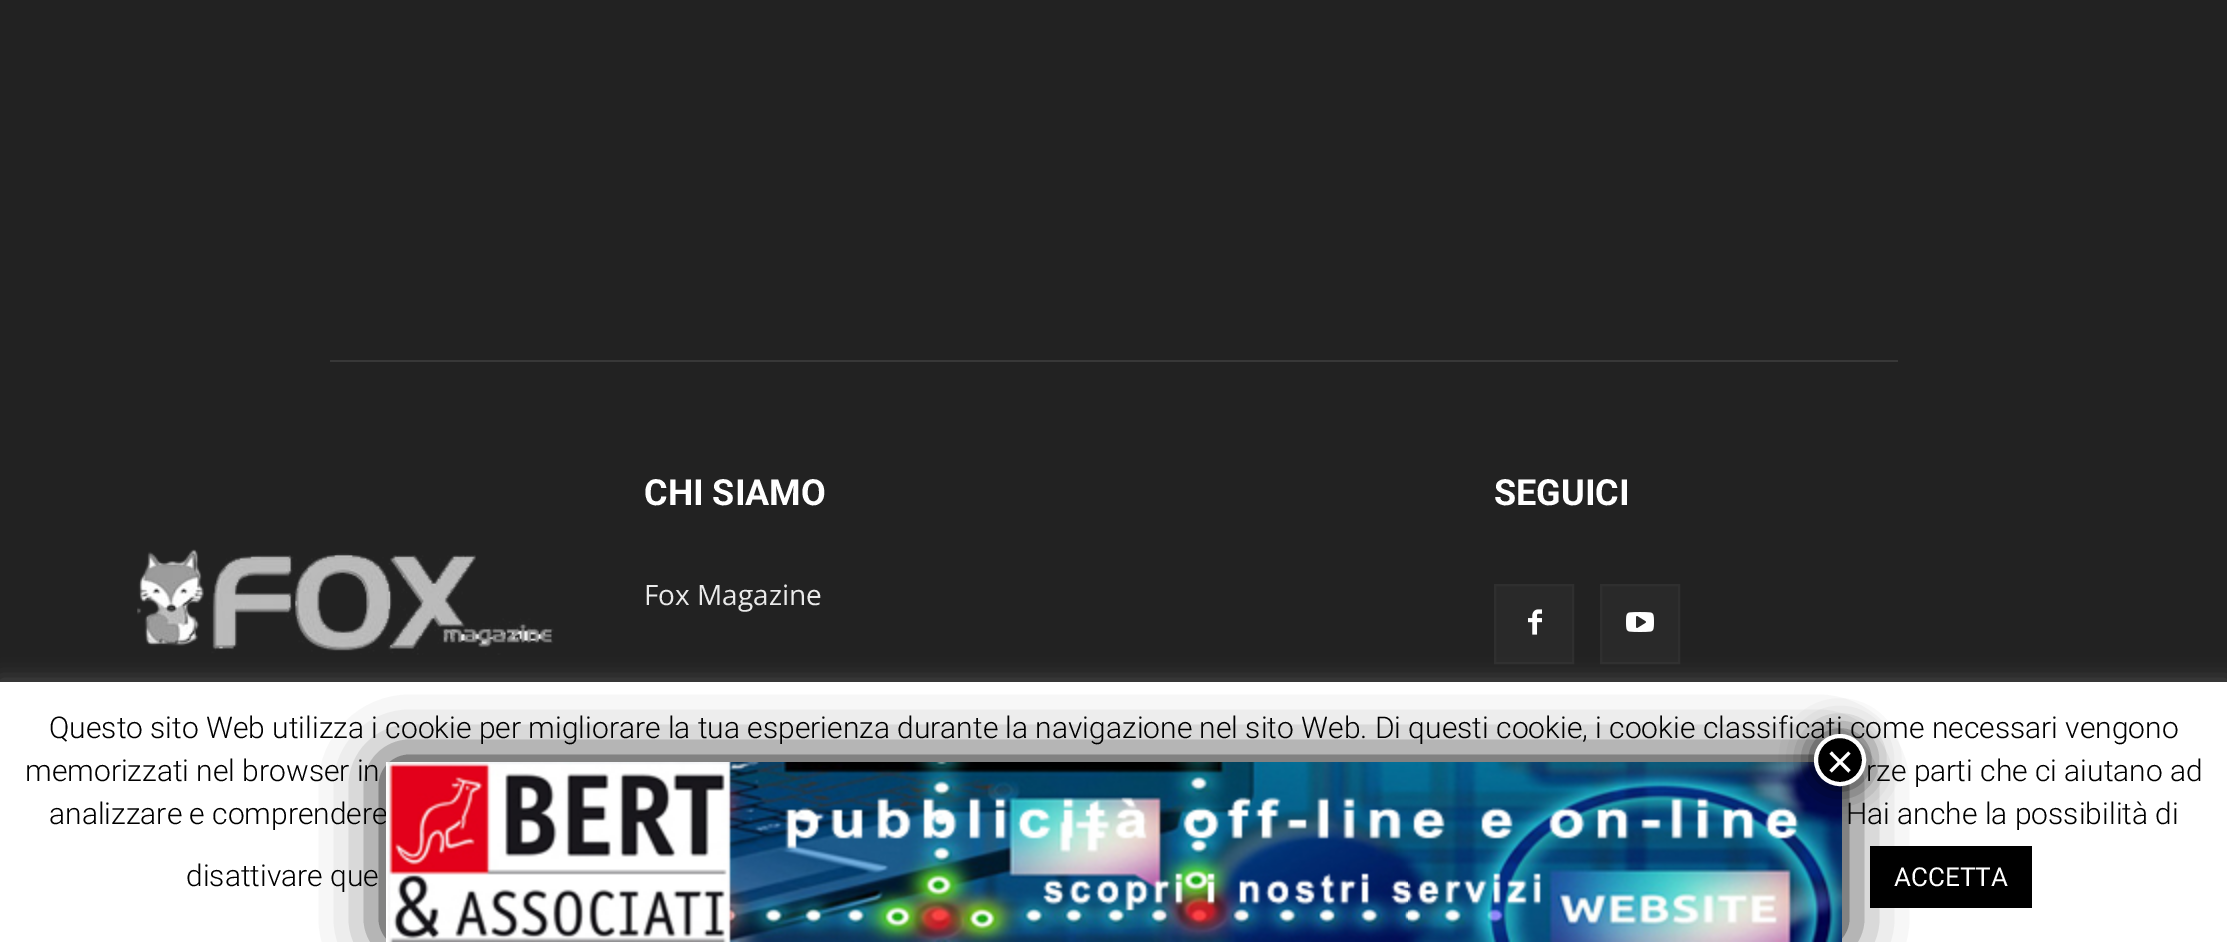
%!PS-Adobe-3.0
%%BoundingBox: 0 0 2227 942
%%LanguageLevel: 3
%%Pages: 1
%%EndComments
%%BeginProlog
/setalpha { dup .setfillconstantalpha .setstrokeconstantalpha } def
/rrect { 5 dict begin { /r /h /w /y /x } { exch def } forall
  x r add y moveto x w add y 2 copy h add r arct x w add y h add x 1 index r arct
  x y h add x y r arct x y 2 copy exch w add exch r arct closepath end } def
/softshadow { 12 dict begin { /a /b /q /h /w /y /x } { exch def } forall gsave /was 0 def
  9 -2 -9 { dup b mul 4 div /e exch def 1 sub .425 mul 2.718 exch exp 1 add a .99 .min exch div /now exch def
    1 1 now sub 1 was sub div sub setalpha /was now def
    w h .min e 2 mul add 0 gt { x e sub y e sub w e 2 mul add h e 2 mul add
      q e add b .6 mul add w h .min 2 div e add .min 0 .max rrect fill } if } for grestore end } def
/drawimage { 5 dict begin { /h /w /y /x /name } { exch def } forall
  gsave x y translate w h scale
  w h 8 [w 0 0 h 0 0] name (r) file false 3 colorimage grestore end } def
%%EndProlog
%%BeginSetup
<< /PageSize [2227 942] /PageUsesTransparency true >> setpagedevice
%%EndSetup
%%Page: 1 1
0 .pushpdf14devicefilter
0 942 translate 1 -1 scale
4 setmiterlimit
0.133 setgray
0 0 2227 942 rectfill
0.22 setgray
330 360 1568 2 rectfill
0.161 setgray
1496 586 76 76 rectfill
(images/1.raw) 1528 609 14 26 drawimage
0.184 setgray
2 setlinewidth
1495 585 78 78 rectstroke
0.161 setgray
1602 586 76 76 rectfill
(images/2.raw) 1626 612 28 20 drawimage
0.184 setgray
1601 585 78 78 rectstroke
(images/3.raw) 137 549 417 106 drawimage
0.675 0.671 0.671 setrgbcolor
0 680 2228 260 0 10 0.3 softshadow
1 setgray
0 682 2227 260 rectfill
0 setgray
1870 846 162 62 rectfill
0.008 setgray
386 762 1456 180 6 30 1 softshadow
/Roboto-Bold [36 0 0 -36 0 0] selectfont
1 setgray
644 505 moveto (CHI SIAMO) show
/OpenSans-Regular [28 0 0 -28 0 0] selectfont
0.918 setgray
644 605 moveto (Fox Magazine) show
/Roboto-Bold [36 0 0 -36 0 0] selectfont
1 setgray
1494 505 moveto (SEGUICI) show
/Roboto-Light [30 0 0 -30 0 0] selectfont
0 setgray
49 738 moveto (Questo sito Web utilizza i cookie per migliorare la tua esperienza durante la navigazione nel sito Web. Di questi cookie, i cookie classificati come necessari vengono) show
25 781 moveto (memorizzati nel browser in) show
1866 781 moveto (rze parti che ci aiutano ad) show
49 824 moveto (analizzare e comprendere) show
1846 824 moveto (Hai anche la possibilità di) show
186 886 moveto (disattivare que) show
/Roboto-Regular [26 0 0 -26 0 0] selectfont
1 setgray
1894 886 moveto (ACCETTA) show
(images/4.raw) 386 762 1456 180 drawimage
0.008 setgray
1812 732 56 56 28 15 0.75 softshadow
0 setgray
newpath 1840 760 24 0 360 arc closepath gsave fill grestore
1 setgray
4 setlinewidth
stroke
/LiberationSans-Regular [48 0 0 -48 0 0] selectfont
1826 778 moveto (×) show
.poppdf14devicefilter showpage
%%EOF
